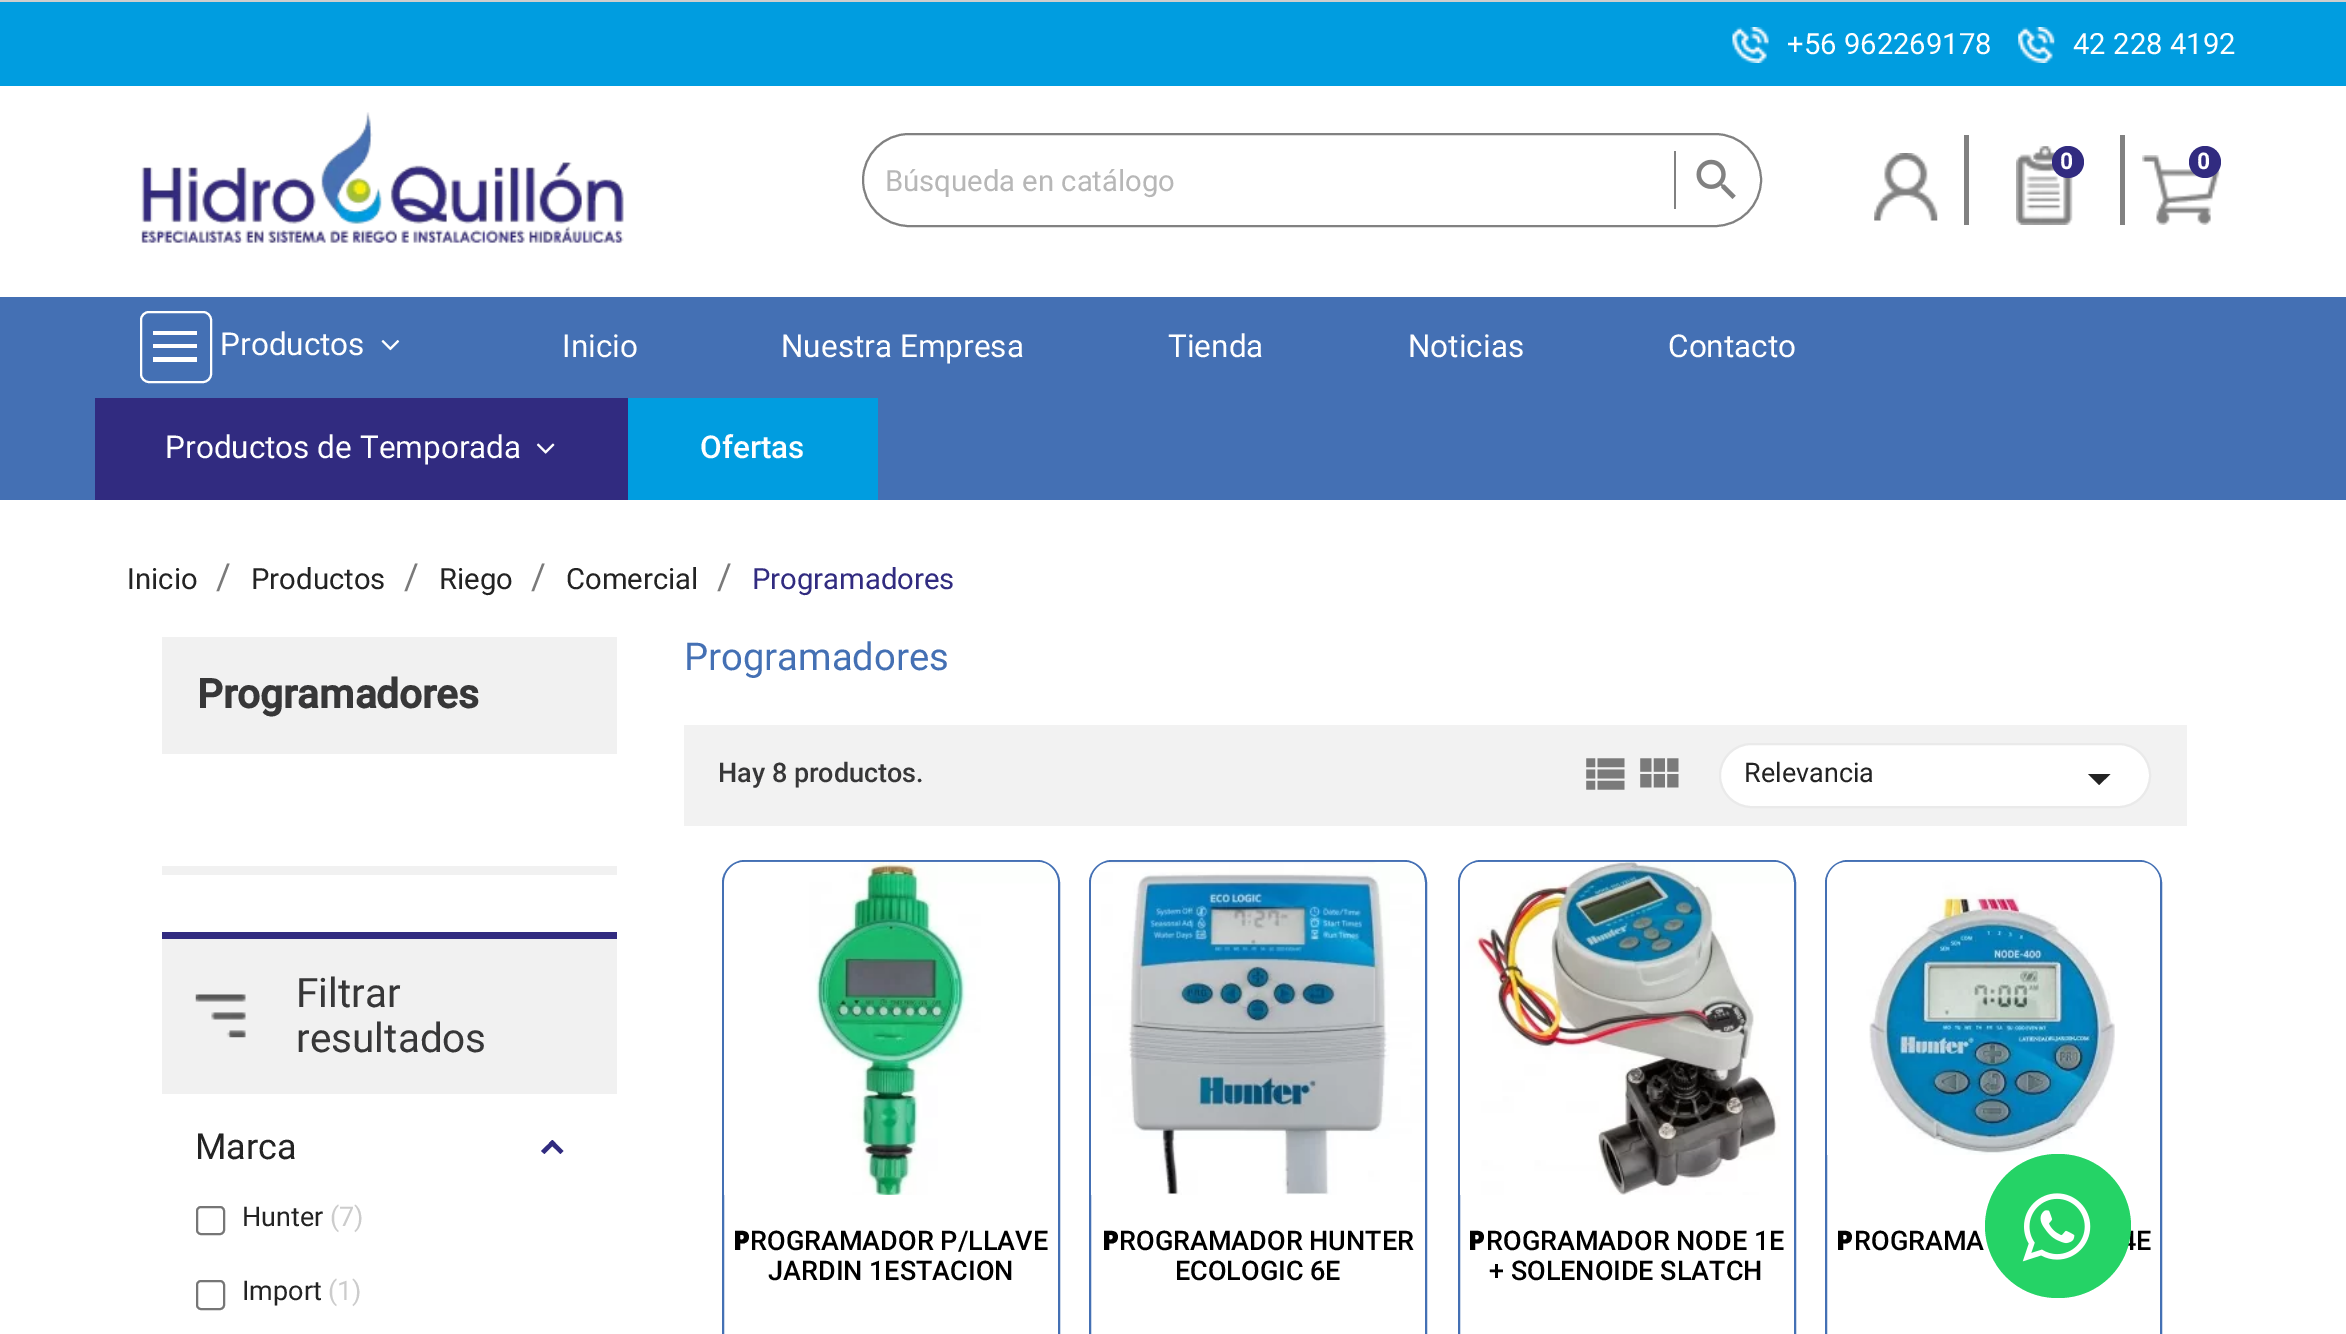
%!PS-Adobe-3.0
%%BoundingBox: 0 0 2346 1334
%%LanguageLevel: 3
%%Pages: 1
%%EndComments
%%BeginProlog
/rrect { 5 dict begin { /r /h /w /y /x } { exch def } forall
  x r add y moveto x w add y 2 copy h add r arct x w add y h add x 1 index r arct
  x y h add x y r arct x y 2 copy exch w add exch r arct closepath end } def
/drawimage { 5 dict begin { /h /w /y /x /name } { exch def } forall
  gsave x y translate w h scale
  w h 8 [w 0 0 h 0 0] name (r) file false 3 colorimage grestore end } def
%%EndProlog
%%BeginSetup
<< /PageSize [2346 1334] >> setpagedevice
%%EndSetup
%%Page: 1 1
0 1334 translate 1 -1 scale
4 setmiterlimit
1 setgray
0 0 2346 1334 rectfill
0.808 setgray
0 0 2346 2 rectfill
0 0.616 0.878 setrgbcolor
0 2 2346 84 rectfill
(images/1.raw) 1732 27 37 36 drawimage
(images/2.raw) 2018 27 37 36 drawimage
(images/3.raw) 141 112 483 131 drawimage
0.506 setgray
1964 135 5 90 rectfill
(images/4.raw) 1874 153 64 68 drawimage
(images/5.raw) 2016 146 57 79 drawimage
0.192 0.169 0.502 setrgbcolor
newpath 2068 162 16 0 360 arc closepath fill
0.506 setgray
2120 135 5 90 rectfill
(images/6.raw) 2142 155 78 70 drawimage
0.192 0.169 0.502 setrgbcolor
newpath 2205 162 16 0 360 arc closepath fill
0.506 setgray
2 setlinewidth
863 134 898 92 46 rrect stroke
1674 151 2 58 rectfill
(images/7.raw) 1696 159 40 40 drawimage
0.267 0.439 0.706 setrgbcolor
0 297 2346 203 rectfill
1 setgray
141 312 70 70 8 rrect stroke
newpath 153 331 moveto 153 335 lineto 197 335 lineto 197 331 lineto closepath 153 344 moveto 153 348 lineto 197 348 lineto 197 344 lineto closepath 153 357 moveto 153 362 lineto 197 362 lineto 197 357 lineto closepath fill
(images/8.raw) 381 340 19 11 drawimage
0.192 0.169 0.502 setrgbcolor
95 398 533 102 rectfill
(images/9.raw) 536 443 19 11 drawimage
0 0.616 0.878 setrgbcolor
628 398 250 102 rectfill
0.945 setgray
162 866 455 9 rectfill
162 637 455 117 rectfill
162 939 455 155 rectfill
(images/10.raw) 195 994 51 44 drawimage
0.192 0.169 0.502 setrgbcolor
162 932 455 7 rectfill
newpath 552.5 1140 moveto 563.5 1151 lineto 560.5 1154 lineto 549 1143 lineto closepath fill
newpath 552.5 1140 moveto 555.5 1143 lineto 544.5 1154 lineto 541 1151 lineto closepath fill
0.463 setgray
197 1207 27 27 4 rrect stroke
197 1281 27 28 4 rrect stroke
0.949 setgray
684 725 1503 101 rectfill
(images/11.raw) 1586 758 39 32 drawimage
(images/12.raw) 1640 758 39 30 drawimage
1 setgray
1720 744 430 63 31.5 rrect gsave fill grestore
0.918 setgray
stroke
0.137 setgray
newpath 2088 774 moveto 2110.5 774 lineto 2099 785 lineto closepath fill
0.267 0.439 0.706 setrgbcolor
723 861 336 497 22 rrect stroke
(images/13.raw) 724 861 334 334 drawimage
1090 861 336 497 22 rrect stroke
(images/14.raw) 1091 861 333 334 drawimage
1459 861 336 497 22 rrect stroke
(images/15.raw) 1460 861 333 334 drawimage
1826 861 335 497 22 rrect stroke
(images/16.raw) 1827 861 333 294 drawimage
/Roboto-Regular [29.25 0 0 -29.25 0 0] selectfont
1 setgray
1787 54 moveto (+56 962269178) show
2073 54 moveto (42 228 4192) show
/Roboto-Bold [22 0 0 -22 0 0] selectfont
2060 169 moveto (0) show
2197 169 moveto (0) show
/Roboto-Regular [29.25 0 0 -29.25 0 0] selectfont
0.718 setgray
885 191 moveto (Búsqueda en catálogo) show
/Roboto-Regular [31.5 0 0 -31.5 0 0] selectfont
1 setgray
220 355 moveto (Productos) show
562 357 moveto (Inicio) show
781 357 moveto (Nuestra Empresa) show
1168 357 moveto (Tienda) show
1408 357 moveto (Noticias) show
1668 357 moveto (Contacto) show
165 458 moveto (Productos de Temporada) show
/Roboto-Medium [31.5 0 0 -31.5 0 0] selectfont
700 458 moveto (Ofertas) show
/Roboto-Regular [29.25 0 0 -29.25 0 0] selectfont
0.137 setgray
127 589 moveto (Inicio) show
/Roboto-Regular [36 0 0 -36 0 0] selectfont
0.478 setgray
216 589 moveto (/) show
/Roboto-Regular [29.25 0 0 -29.25 0 0] selectfont
0.137 setgray
251 589 moveto (Productos) show
/Roboto-Regular [36 0 0 -36 0 0] selectfont
0.478 setgray
404 589 moveto (/) show
/Roboto-Regular [29.25 0 0 -29.25 0 0] selectfont
0.137 setgray
439 589 moveto (Riego) show
/Roboto-Regular [36 0 0 -36 0 0] selectfont
0.478 setgray
531 589 moveto (/) show
/Roboto-Regular [29.25 0 0 -29.25 0 0] selectfont
0.137 setgray
566 589 moveto (Comercial) show
/Roboto-Regular [36 0 0 -36 0 0] selectfont
0.478 setgray
717 589 moveto (/) show
/Roboto-Regular [29.25 0 0 -29.25 0 0] selectfont
0.192 0.169 0.502 setrgbcolor
752 589 moveto (Programadores) show
/Roboto-Bold [40.5 0 0 -40.5 0 0] selectfont
0.216 0.216 0.22 setrgbcolor
197 708 moveto (Programadores) show
/Roboto-Regular [40.5 0 0 -40.5 0 0] selectfont
296 1007 moveto (Filtrar) show
296 1052 moveto (resultados) show
/Roboto-Regular [36 0 0 -36 0 0] selectfont
0.137 setgray
195 1159 moveto (Marca) show
/Roboto-Regular [27 0 0 -27 0 0] selectfont
242 1226 moveto (Hunter) show
0.8 setgray
330 1226 moveto (\(7\)) show
0.137 setgray
242 1300 moveto (Import) show
0.8 setgray
328 1300 moveto (\(1\)) show
/Roboto-Regular [38.25 0 0 -38.25 0 0] selectfont
0.267 0.439 0.706 setrgbcolor
684 670 moveto (Programadores) show
/Roboto-Medium [27 0 0 -27 0 0] selectfont
0.216 0.216 0.22 setrgbcolor
718 782 moveto (Hay 8 productos.) show
/Roboto-Regular [27 0 0 -27 0 0] selectfont
0.137 setgray
1744 782 moveto (Relevancia) show
/NotoSans-Black [27 0 0 -27 0 0] selectfont
0 setgray
733 1250 moveto (P) show
/Roboto-Medium [27 0 0 -27 0 0] selectfont
750 1250 moveto (ROGRAMADOR P/LLAVE) show
768 1280 moveto (JARDIN 1ESTACION) show
/NotoSans-Black [27 0 0 -27 0 0] selectfont
1102 1250 moveto (P) show
/Roboto-Medium [27 0 0 -27 0 0] selectfont
1119 1250 moveto (ROGRAMADOR HUNTER) show
1175 1280 moveto (ECOLOGIC 6E) show
/NotoSans-Black [27 0 0 -27 0 0] selectfont
1468 1250 moveto (P) show
/Roboto-Medium [27 0 0 -27 0 0] selectfont
1486 1250 moveto (ROGRAMADOR NODE 1E) show
1489 1280 moveto (+ SOLENOIDE SLATCH) show
/NotoSans-Black [27 0 0 -27 0 0] selectfont
1836 1250 moveto (P) show
/Roboto-Medium [27 0 0 -27 0 0] selectfont
1854 1250 moveto (ROGRAMA) show
2121 1250 moveto (4E) show
0.145 0.827 0.4 setrgbcolor
1985 1154 146 144 72 rrect fill
(images/17.raw) 2022 1193 69 69 drawimage
showpage
%%EOF
